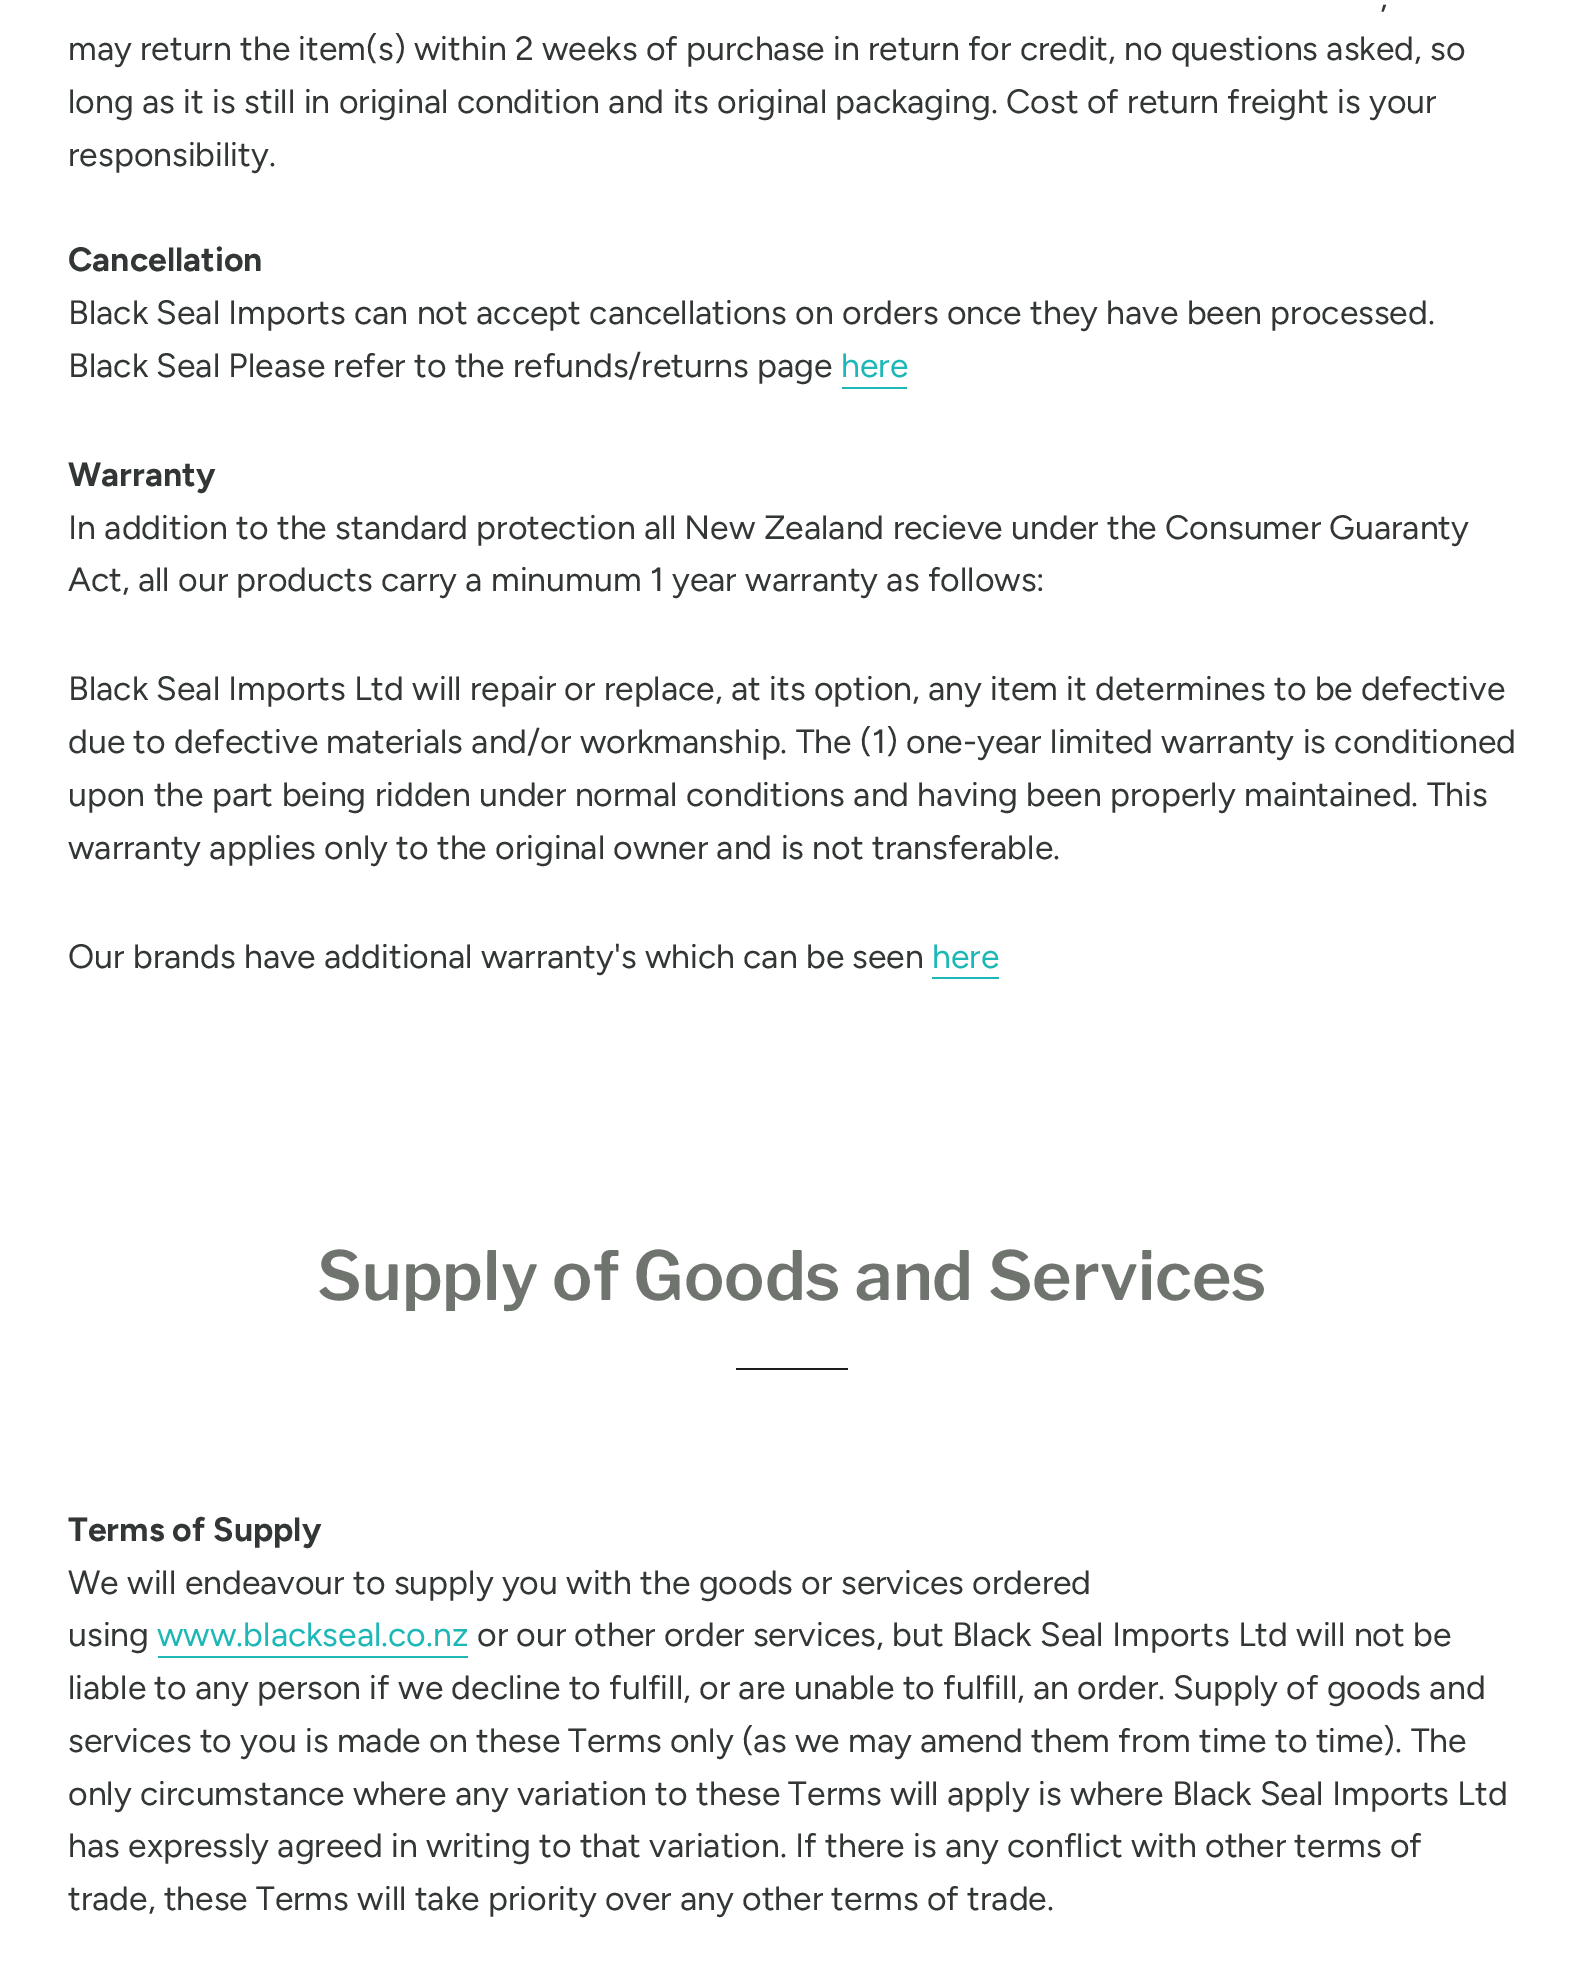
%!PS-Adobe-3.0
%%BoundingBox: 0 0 1583 1977
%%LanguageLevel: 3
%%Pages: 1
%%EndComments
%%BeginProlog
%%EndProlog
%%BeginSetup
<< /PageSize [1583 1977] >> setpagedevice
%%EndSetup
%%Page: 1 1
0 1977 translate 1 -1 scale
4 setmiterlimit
1 setgray
0 0 1583 1977 rectfill
0.114 0.718 0.718 setrgbcolor
842 387 65 2 rectfill
932 977 67 2 rectfill
0.11 0.114 0.114 setrgbcolor
736 1368 112 2 rectfill
0.114 0.718 0.718 setrgbcolor
158 1656 310 2 rectfill
/Figtree-Regular [33.75 0 0 -33.75 0 0] selectfont
0.196 0.212 0.212 setrgbcolor
1380 8 moveto (,) show
68 60 moveto (may return the item\(s\) within 2 weeks of purchase in return for credit, no questions asked, so) show
68 113 moveto (long as it is still in original condition and its original packaging. Cost of return freight is your) show
68 166 moveto (responsibility.) show
/Figtree-Bold [33.75 0 0 -33.75 0 0] selectfont
68 271 moveto (Cancellation) show
/Figtree-Regular [33.75 0 0 -33.75 0 0] selectfont
68 324 moveto (Black Seal Imports can not accept cancellations on orders once they have been processed.) show
68 377 moveto (Black Seal Please refer to the refunds/returns page) show
0.114 0.718 0.718 setrgbcolor
841 377 moveto (here) show
/Figtree-Bold [33.75 0 0 -33.75 0 0] selectfont
0.196 0.212 0.212 setrgbcolor
68 486 moveto (Warranty) show
/Figtree-Regular [33.75 0 0 -33.75 0 0] selectfont
68 539 moveto (In addition to the standard protection all New Zealand recieve under the Consumer Guaranty) show
68 591 moveto (Act, all our products carry a minumum 1 year warranty as follows:) show
68 700 moveto (Black Seal Imports Ltd will repair or replace, at its option, any item it determines to be defective) show
68 753 moveto (due to defective materials and/or workmanship. The \(1\) one-year limited warranty is conditioned) show
68 806 moveto (upon the part being ridden under normal conditions and having been properly maintained. This) show
68 859 moveto (warranty applies only to the original owner and is not transferable.) show
68 968 moveto (Our brands have additional warranty's which can be seen) show
0.114 0.718 0.718 setrgbcolor
932 968 moveto (here) show
/LibreFranklin-SemiBold [67.5 0 0 -67.5 0 0] selectfont
0.435 0.455 0.435 setrgbcolor
317 1300 moveto (Supply of Goods and Services) show
/Figtree-Bold [33.75 0 0 -33.75 0 0] selectfont
0.196 0.212 0.212 setrgbcolor
68 1541 moveto (Terms of Supply) show
/Figtree-Regular [33.75 0 0 -33.75 0 0] selectfont
68 1594 moveto (We will endeavour to supply you with the goods or services ordered) show
68 1646 moveto (using) show
0.114 0.718 0.718 setrgbcolor
157 1646 moveto (www.blackseal.co.nz) show
0.196 0.212 0.212 setrgbcolor
477 1646 moveto (or our other order services, but Black Seal Imports Ltd will not be) show
68 1699 moveto (liable to any person if we decline to fulfill, or are unable to fulfill, an order. Supply of goods and) show
68 1752 moveto (services to you is made on these Terms only \(as we may amend them from time to time\). The) show
68 1805 moveto (only circumstance where any variation to these Terms will apply is where Black Seal Imports Ltd) show
68 1857 moveto (has expressly agreed in writing to that variation. If there is any conflict with other terms of) show
68 1910 moveto (trade, these Terms will take priority over any other terms of trade.) show
showpage
%%EOF
